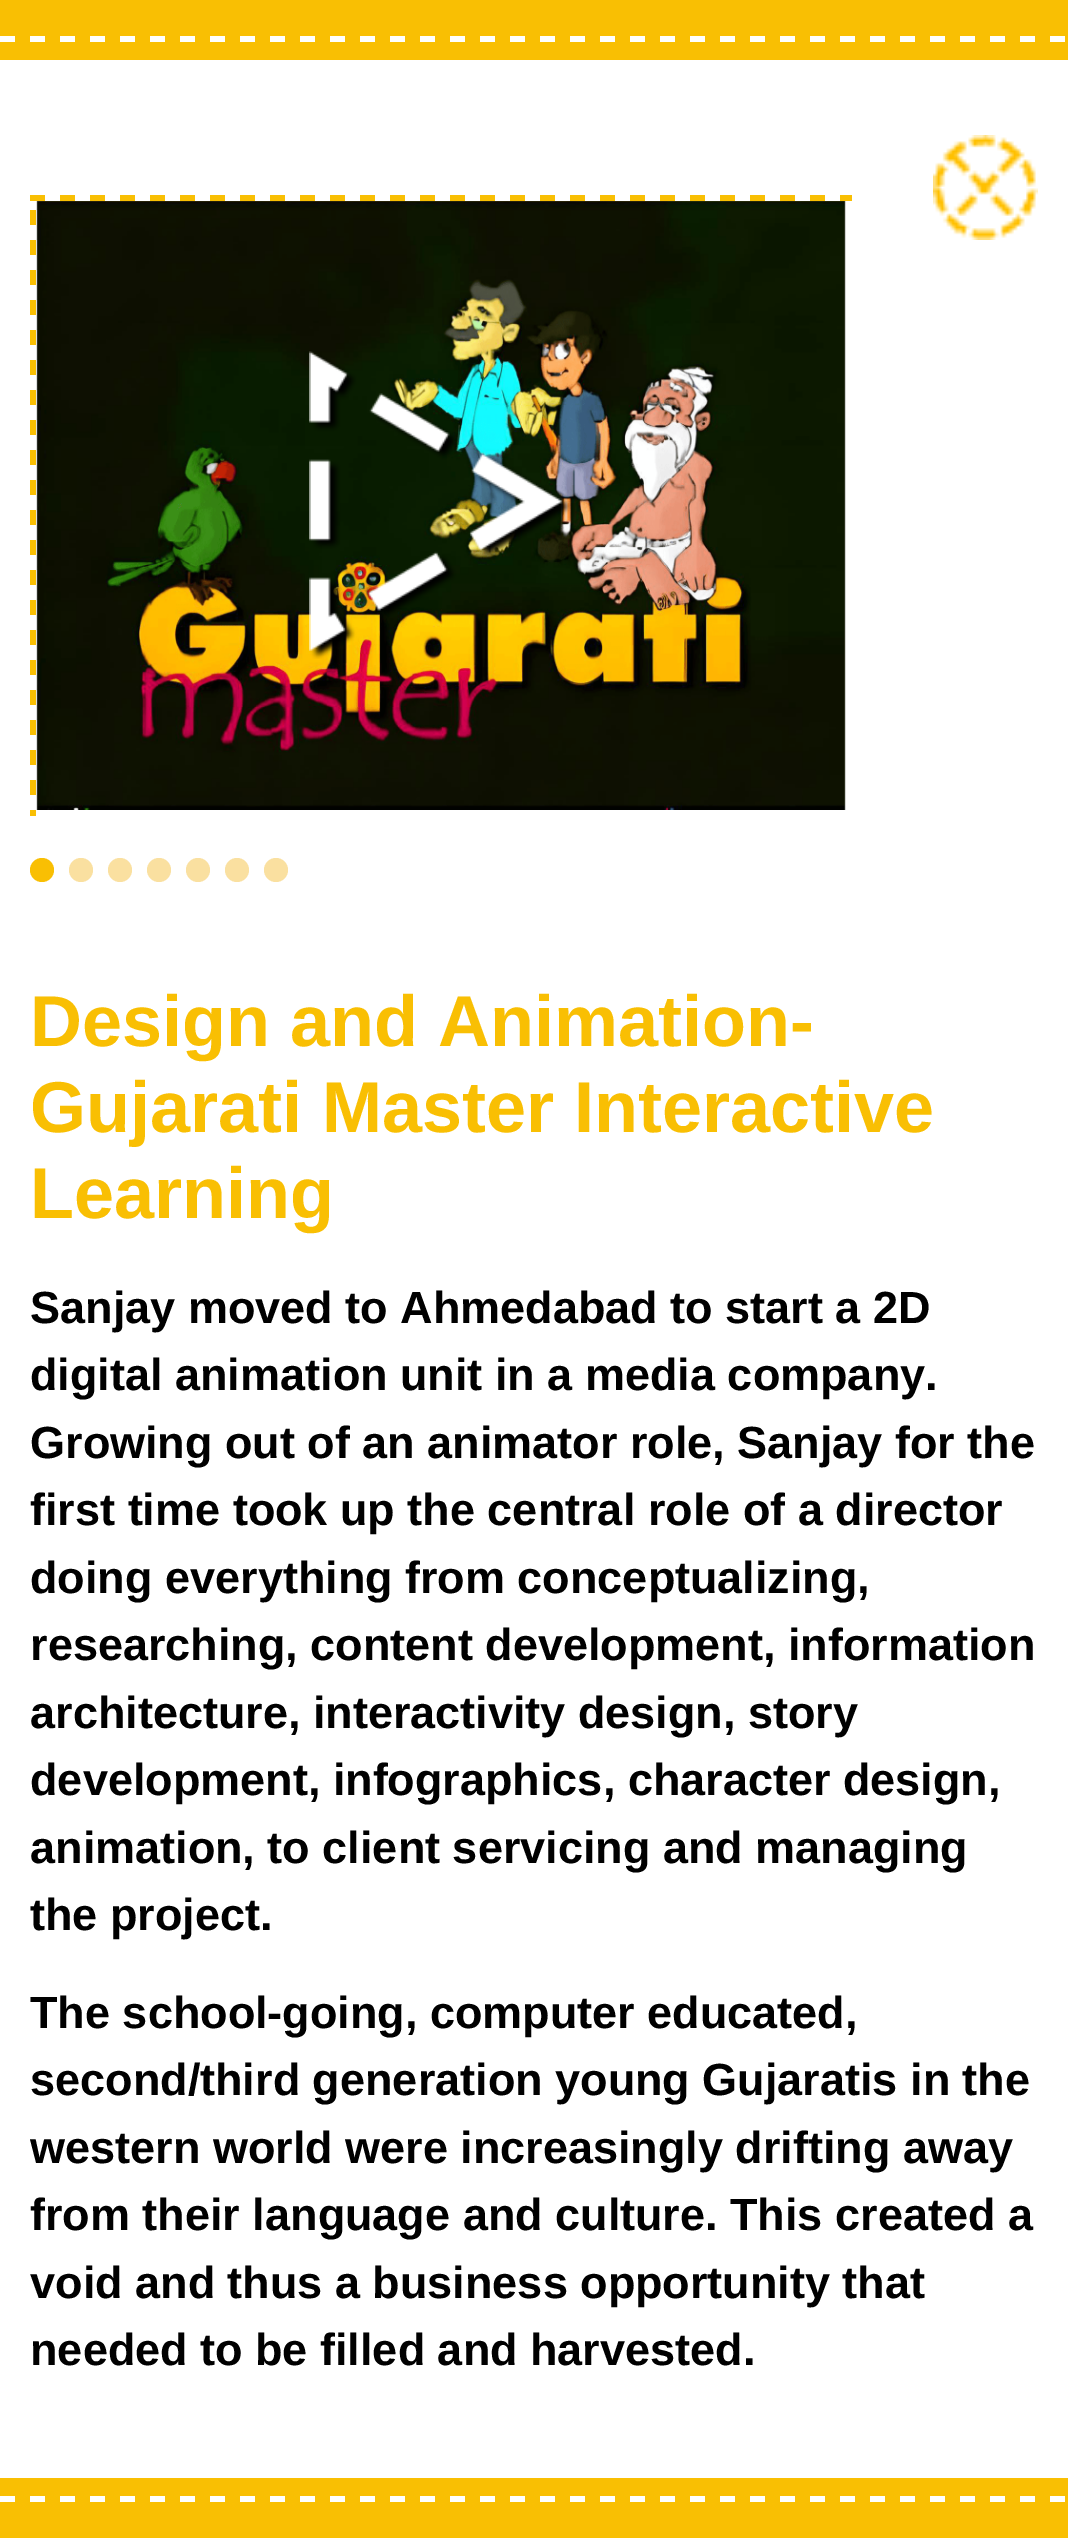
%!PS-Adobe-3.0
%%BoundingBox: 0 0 1068 2538
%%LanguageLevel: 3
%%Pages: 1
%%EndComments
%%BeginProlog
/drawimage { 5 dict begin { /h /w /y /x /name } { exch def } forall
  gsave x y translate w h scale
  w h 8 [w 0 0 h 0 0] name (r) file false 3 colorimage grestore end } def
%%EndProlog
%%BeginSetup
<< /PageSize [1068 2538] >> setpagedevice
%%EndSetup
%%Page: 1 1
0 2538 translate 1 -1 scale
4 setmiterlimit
0.976 0.749 0.012 setrgbcolor
0 0 1068 2538 rectfill
1 setgray
0 60 1068 2418 rectfill
(images/1.raw) 0 36 1065 6 drawimage
(images/2.raw) 933 135 105 105 drawimage
(images/3.raw) 30 210 6 606 drawimage
(images/4.raw) 30 195 822 6 drawimage
(images/5.raw) 36 201 810 609 drawimage
(images/6.raw) 309 351 262 308 drawimage
0.976 0.749 0.012 setrgbcolor
newpath 42 870 12 0 360 arc closepath fill
0.98 0.878 0.627 setrgbcolor
newpath 81 870 12 0 360 arc closepath fill
newpath 120 870 12 0 360 arc closepath fill
newpath 159 870 12 0 360 arc closepath fill
newpath 198 870 12 0 360 arc closepath fill
newpath 237 870 12 0 360 arc closepath fill
newpath 276 870 12 0 360 arc closepath fill
(images/1.raw) 0 2496 1065 6 drawimage
/LiberationSans-Bold [72 0 0 -72 0 0] selectfont
0.976 0.749 0.012 setrgbcolor
30 1046 moveto (Design and Animation-) show
30 1132 moveto (Gujarati Master Interactive) show
30 1218 moveto (Learning) show
/LiberationSans-Bold [45 0 0 -45 0 0] selectfont
0 setgray
30 1323 moveto (Sanjay moved to Ahmedabad to start a 2D) show
30 1390 moveto (digital animation unit in a media company.) show
30 1458 moveto (Growing out of an animator role, Sanjay for the) show
30 1525 moveto (first time took up the central role of a director) show
30 1593 moveto (doing everything from conceptualizing,) show
30 1660 moveto (researching, content development, information) show
30 1728 moveto (architecture, interactivity design, story) show
30 1795 moveto (development, infographics, character design,) show
30 1863 moveto (animation, to client servicing and managing) show
30 1930 moveto (the project.) show
30 2028 moveto (The school-going, computer educated,) show
30 2095 moveto (second/third generation young Gujaratis in the) show
30 2163 moveto (western world were increasingly drifting away) show
30 2230 moveto (from their language and culture. This created a) show
30 2298 moveto (void and thus a business opportunity that) show
30 2365 moveto (needed to be filled and harvested.) show
showpage
%%EOF
